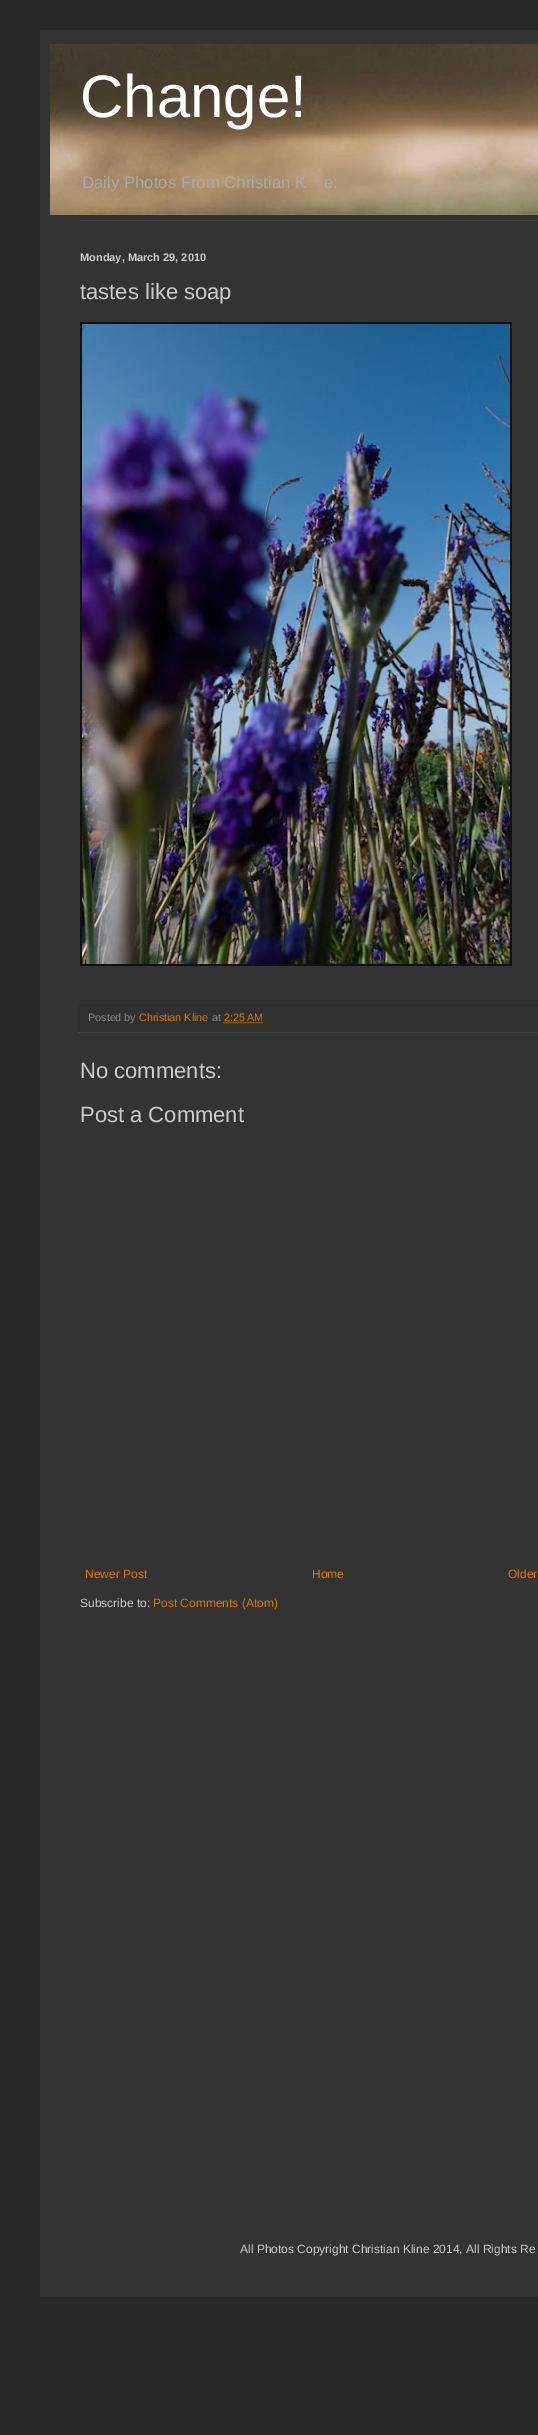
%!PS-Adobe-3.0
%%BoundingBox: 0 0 538 2435
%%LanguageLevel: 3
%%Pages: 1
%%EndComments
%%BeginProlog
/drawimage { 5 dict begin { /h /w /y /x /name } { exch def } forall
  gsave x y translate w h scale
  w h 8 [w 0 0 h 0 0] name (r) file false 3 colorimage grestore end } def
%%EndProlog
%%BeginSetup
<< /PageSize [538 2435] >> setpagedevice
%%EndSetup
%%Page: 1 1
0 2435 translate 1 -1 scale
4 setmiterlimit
0.161 setgray
0 0 538 2435 rectfill
0.2 setgray
40 30 498 2267 rectfill
(images/1.raw) 50 44 488 171 drawimage
0.251 setgray
80 220 458 1 rectfill
0.067 setgray
80 322 432 644 rectfill
(images/2.raw) 82 324 428 640 drawimage
0.188 setgray
78 1004 460 28 rectfill
0.267 setgray
78 1032 460 1 rectfill
0.867 0.467 0 setrgbcolor
[1 1] 0 setdash
newpath 223.5 1022.5 moveto 263 1022.5 lineto stroke
/LiberationSans-Regular [60 0 0 -60 0 0] selectfont
1 setgray
80 117 moveto (Change!) show
/LiberationSans-Regular [16.75 0 0 -16.75 0 0] selectfont
0.667 setgray
82 188 moveto (Daily Photos From Christian K) show
324 188 moveto (e:) show
/LiberationSans-Bold [11 0 0 -11 0 0] selectfont
0.8 setgray
80 261 moveto (Monday, March 29, 2010) show
/LiberationSans-Regular [22 0 0 -22 0 0] selectfont
80 299 moveto (tastes like soap) show
/LiberationSans-Regular [10.75 0 0 -10.75 0 0] selectfont
0.533 setgray
88 1021 moveto (Posted by) show
0.867 0.467 0 setrgbcolor
139 1021 moveto (Christian Kline) show
0.533 setgray
212 1021 moveto (at) show
0.867 0.467 0 setrgbcolor
224 1021 moveto (2:25 AM) show
/LiberationSans-Regular [22 0 0 -22 0 0] selectfont
0.8 setgray
80 1078 moveto (No comments:) show
80 1122 moveto (Post a Comment) show
/LiberationSans-Regular [12 0 0 -12 0 0] selectfont
0.867 0.467 0 setrgbcolor
85 1578 moveto (Newer Post) show
312 1578 moveto (Home) show
508 1578 moveto (Older) show
0.8 setgray
80 1607 moveto (Subscribe to:) show
0.867 0.467 0 setrgbcolor
153 1607 moveto (Post Comments \(Atom\)) show
0.8 setgray
240 2253 moveto (All Photos Copyright Christian Kline 2014, All Rights Re) show
showpage
%%EOF
